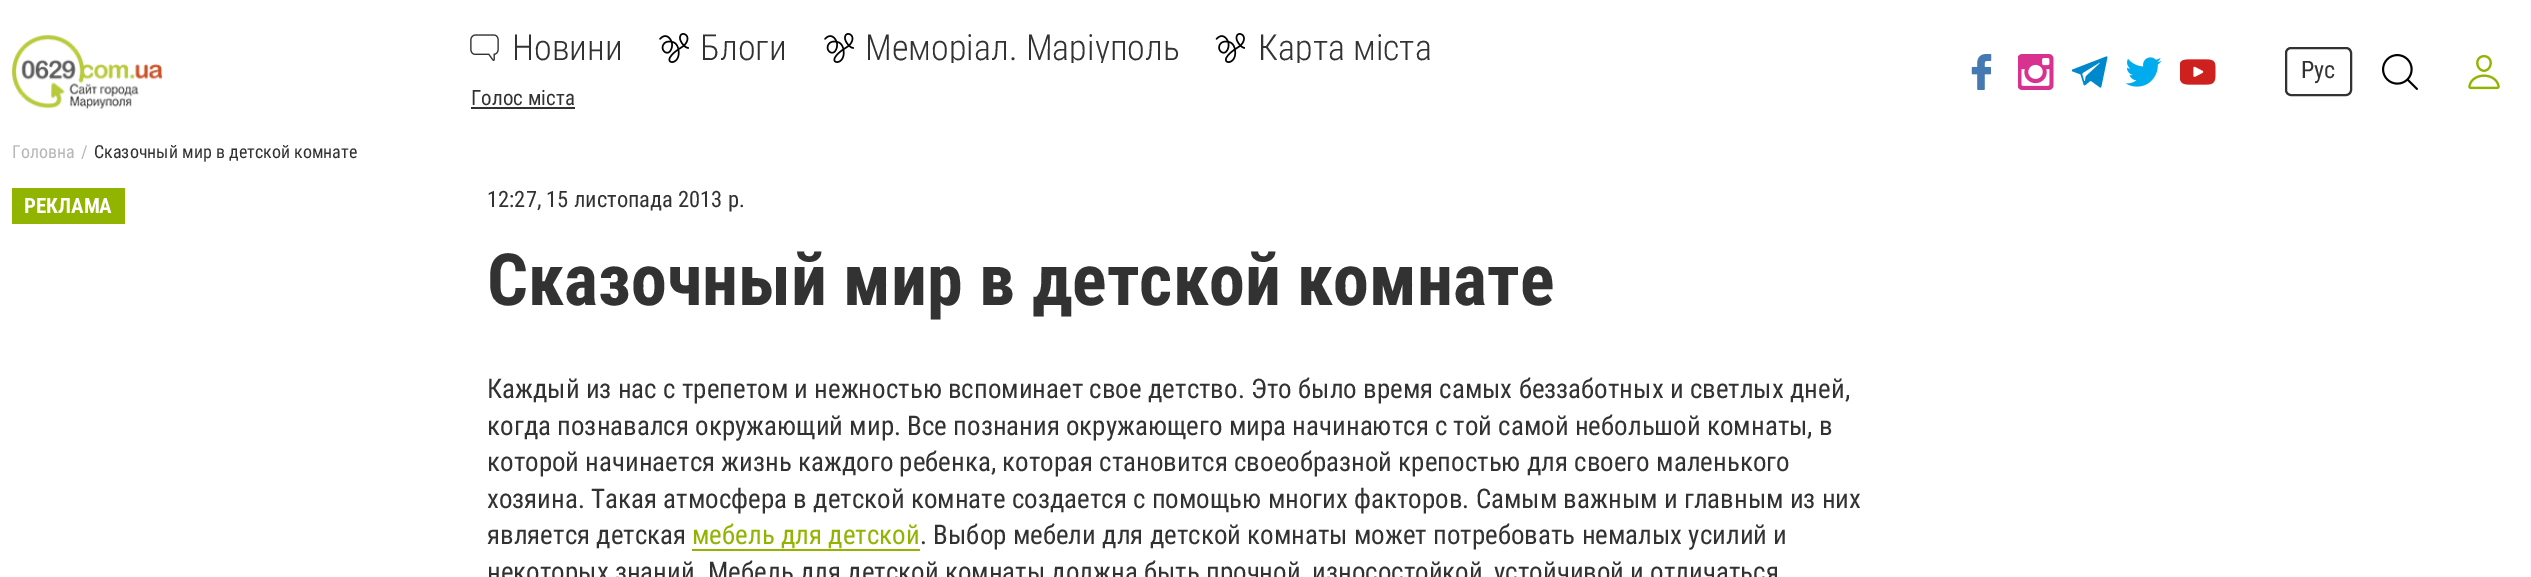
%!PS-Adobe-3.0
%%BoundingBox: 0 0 2531 577
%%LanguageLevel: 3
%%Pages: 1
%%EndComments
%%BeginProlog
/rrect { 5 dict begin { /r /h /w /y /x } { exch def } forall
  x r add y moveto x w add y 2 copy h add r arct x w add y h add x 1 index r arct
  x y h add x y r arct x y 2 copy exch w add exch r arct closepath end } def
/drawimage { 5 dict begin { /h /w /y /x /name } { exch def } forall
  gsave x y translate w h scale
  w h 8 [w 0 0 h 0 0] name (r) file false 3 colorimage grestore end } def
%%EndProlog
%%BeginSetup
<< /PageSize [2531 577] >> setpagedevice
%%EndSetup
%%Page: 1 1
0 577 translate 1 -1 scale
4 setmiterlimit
1 setgray
0 0 2531 577 rectfill
(images/1.raw) 12 35 151 75 drawimage
(images/2.raw) 470 34 29 27 drawimage
(images/3.raw) 659 33 30 30 drawimage
(images/3.raw) 824 33 30 30 drawimage
(images/4.raw) 1215 33 30 30 drawimage
0.196 setgray
471 107 104 2 rectfill
(images/5.raw) 1971 54 21 36 drawimage
(images/6.raw) 2018 54 36 36 drawimage
(images/7.raw) 2072 56 36 32 drawimage
(images/8.raw) 2126 57 36 30 drawimage
(images/9.raw) 2180 59 36 26 drawimage
2 setlinewidth
2286 48 65 47 5 rrect stroke
(images/10.raw) 2382 54 36 36 drawimage
(images/11.raw) 2468 55 32 35 drawimage
0.565 0.706 0 setrgbcolor
12 188 113 36 rectfill
692 549 228 2 rectfill
/RobotoCondensed-Light [36 0 0 -36 0 0] selectfont
0.196 setgray
512 60 moveto (Новини) show
700 60 moveto (Блоги) show
gsave
824 33 355 30 rectclip
865 60 moveto (Меморіал. Маріуполь) show
grestore
gsave
1215 33 216 30 rectclip
1258 60 moveto (Карта міста) show
grestore
/RobotoCondensed-Regular [21 0 0 -21 0 0] selectfont
471 105 moveto (Голос міста) show
/RobotoCondensed-Regular [24 0 0 -24 0 0] selectfont
2301 78 moveto (Рус) show
/RobotoCondensed-Regular [18 0 0 -18 0 0] selectfont
0.718 setgray
12 158 moveto (Головна) show
81 158 moveto (/) show
0.196 setgray
94 158 moveto (Сказочный мир в детской комнате) show
/RobotoCondensed-Bold [21 0 0 -21 0 0] selectfont
1 setgray
24 213 moveto (РЕКЛАМА) show
/RobotoCondensed-Regular [22.5 0 0 -22.5 0 0] selectfont
0.196 setgray
487 207 moveto (12:27, 15 листопада 2013 р.) show
/RobotoCondensed-Bold [72 0 0 -72 0 0] selectfont
487 305 moveto (Сказочный мир в детской комнате) show
/RobotoCondensed-Regular [27 0 0 -27 0 0] selectfont
487 398 moveto (Каждый из нас с трепетом и нежностью вспоминает свое детство. Это было время самых беззаботных и светлых дней,) show
487 435 moveto (когда познавался окружающий мир. Все познания окружающего мира начинаются с той самой небольшой комнаты, в) show
487 471 moveto (которой начинается жизнь каждого ребенка, которая становится своеобразной крепостью для своего маленького) show
487 508 moveto (хозяина. Такая атмосфера в детской комнате создается с помощью многих факторов. Самым важным и главным из них) show
487 544 moveto (является детская) show
0.565 0.706 0 setrgbcolor
692 544 moveto (мебель для детской) show
0.196 setgray
920 544 moveto (. Выбор мебели для детской комнаты может потребовать немалых усилий и) show
487 581 moveto (некоторых знаний. Мебель для детской комнаты должна быть прочной, износостойкой, устойчивой и отличаться) show
showpage
%%EOF
